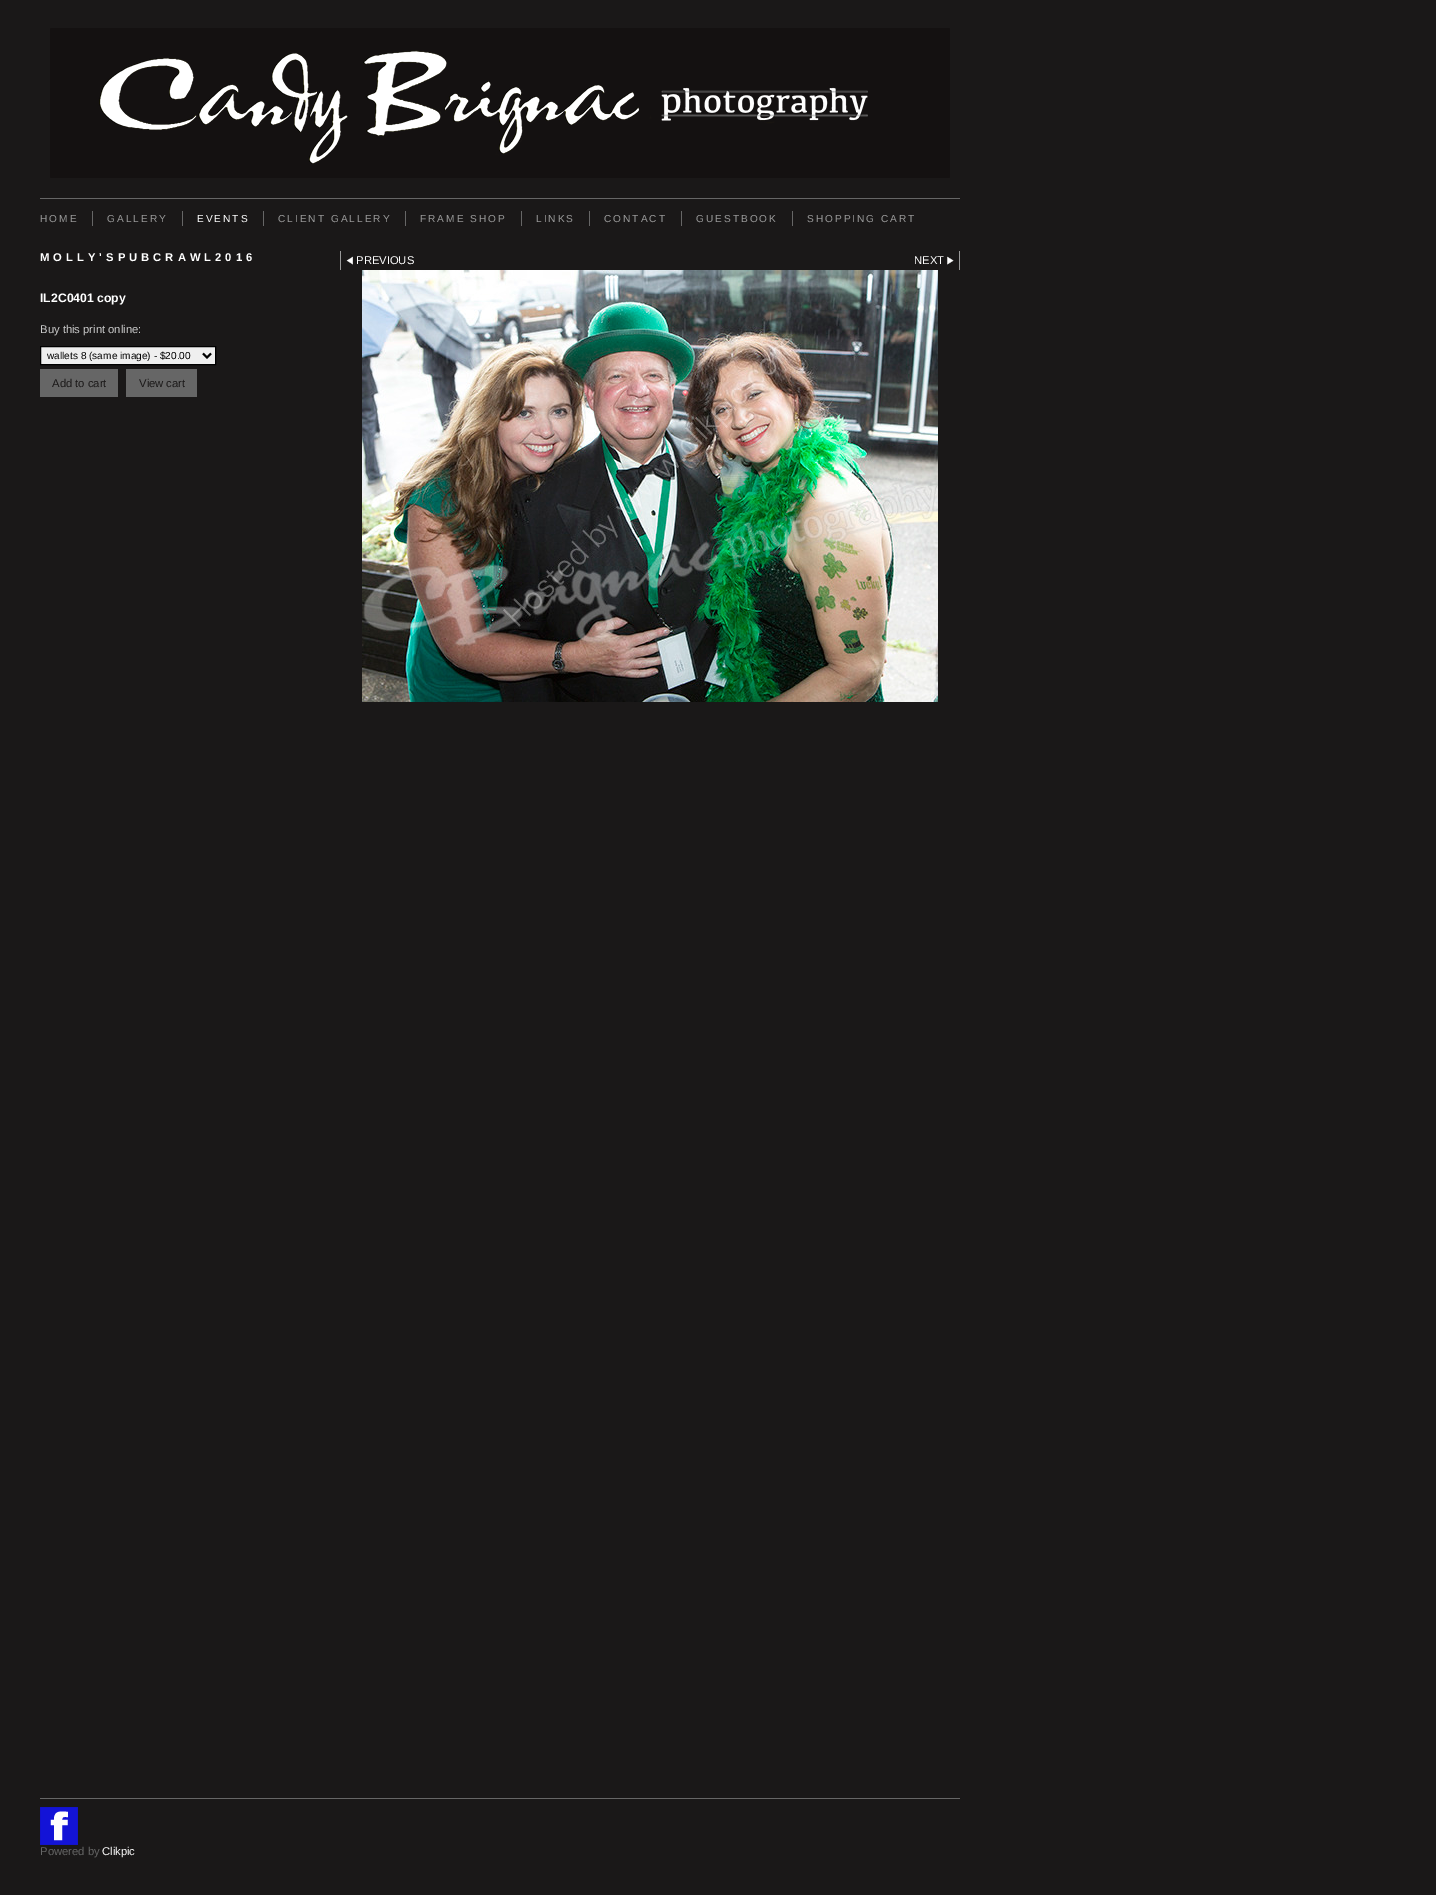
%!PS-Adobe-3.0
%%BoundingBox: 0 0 1436 1895
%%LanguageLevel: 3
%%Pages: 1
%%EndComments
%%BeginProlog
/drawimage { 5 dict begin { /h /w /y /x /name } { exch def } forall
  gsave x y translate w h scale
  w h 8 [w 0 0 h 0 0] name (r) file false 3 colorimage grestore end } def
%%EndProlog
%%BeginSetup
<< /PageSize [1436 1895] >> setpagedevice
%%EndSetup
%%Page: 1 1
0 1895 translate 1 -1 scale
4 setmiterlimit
0.102 0.094 0.094 setrgbcolor
0 0 1436 1895 rectfill
0.4 setgray
40 198 920 1 rectfill
(images/1.raw) 50 28 900 150 drawimage
92 211 1 15 rectfill
182 211 1 15 rectfill
263 211 1 15 rectfill
405 211 1 15 rectfill
521 211 1 15 rectfill
589 211 1 15 rectfill
681 211 1 15 rectfill
792 211 1 15 rectfill
0.937 setgray
newpath 40.5 346.5 moveto 215.5 346.5 lineto 215.5 364.5 lineto 40.5 364.5 lineto closepath gsave fill grestore
0 setgray
stroke
2 setlinewidth
newpath 203 353.5 moveto 207 357.5 lineto 211 353.5 lineto stroke
0.4 setgray
40 369 78 28 rectfill
126 369 71 28 rectfill
0.6 setgray
340 251 1 19 rectfill
(images/2.raw) 346 256 7 9 drawimage
959 251 1 19 rectfill
(images/3.raw) 947 256 7 9 drawimage
(images/4.raw) 362 270 576 432 drawimage
0.4 setgray
40 1798 920 1 rectfill
(images/5.raw) 40 1807 38 38 drawimage
/LiberationSans-Regular [10.1 0 0 -10.1 0 0] selectfont
0.6 setgray
40 222 moveto 2 0 (HOME) ashow
107 222 moveto 2 0 (GALLERY) ashow
1 setgray
197 222 moveto 2 0 (EVENTS) ashow
0.6 setgray
278 222 moveto 2 0 (CLIENT GALLERY) ashow
420 222 moveto 2 0 (FRAME SHOP) ashow
536 222 moveto 2 0 (LINKS) ashow
604 222 moveto 2 0 (CONTACT) ashow
696 222 moveto 2 0 (GUESTBOOK) ashow
807 222 moveto 2 0 (SHOPPING CART) ashow
/LiberationSans-Bold [11.25 0 0 -11.25 0 0] selectfont
1 setgray
40 261 moveto 4 0 (MOLLY'SPUBCRAWL2016) ashow
/LiberationSans-Bold [12.25 0 0 -12.25 0 0] selectfont
40 302 moveto (IL2C0401 copy) show
/LiberationSans-Regular [11.25 0 0 -11.25 0 0] selectfont
0.8 setgray
40 333 moveto (Buy this print online:) show
/LiberationSans-Regular [10.1 0 0 -10.1 0 0] selectfont
0 setgray
47 359 moveto (wallets 8 \(same image\) - $20.00) show
/LiberationSans-Regular [11.25 0 0 -11.25 0 0] selectfont
0.102 0.094 0.094 setrgbcolor
52 387 moveto (Add to cart) show
139 387 moveto (View cart) show
1 setgray
356 264 moveto (PREVIOUS) show
914 264 moveto (NEXT) show
0.4 setgray
40 1855 moveto (Powered by) show
1 setgray
102 1855 moveto (Clikpic) show
showpage
%%EOF
